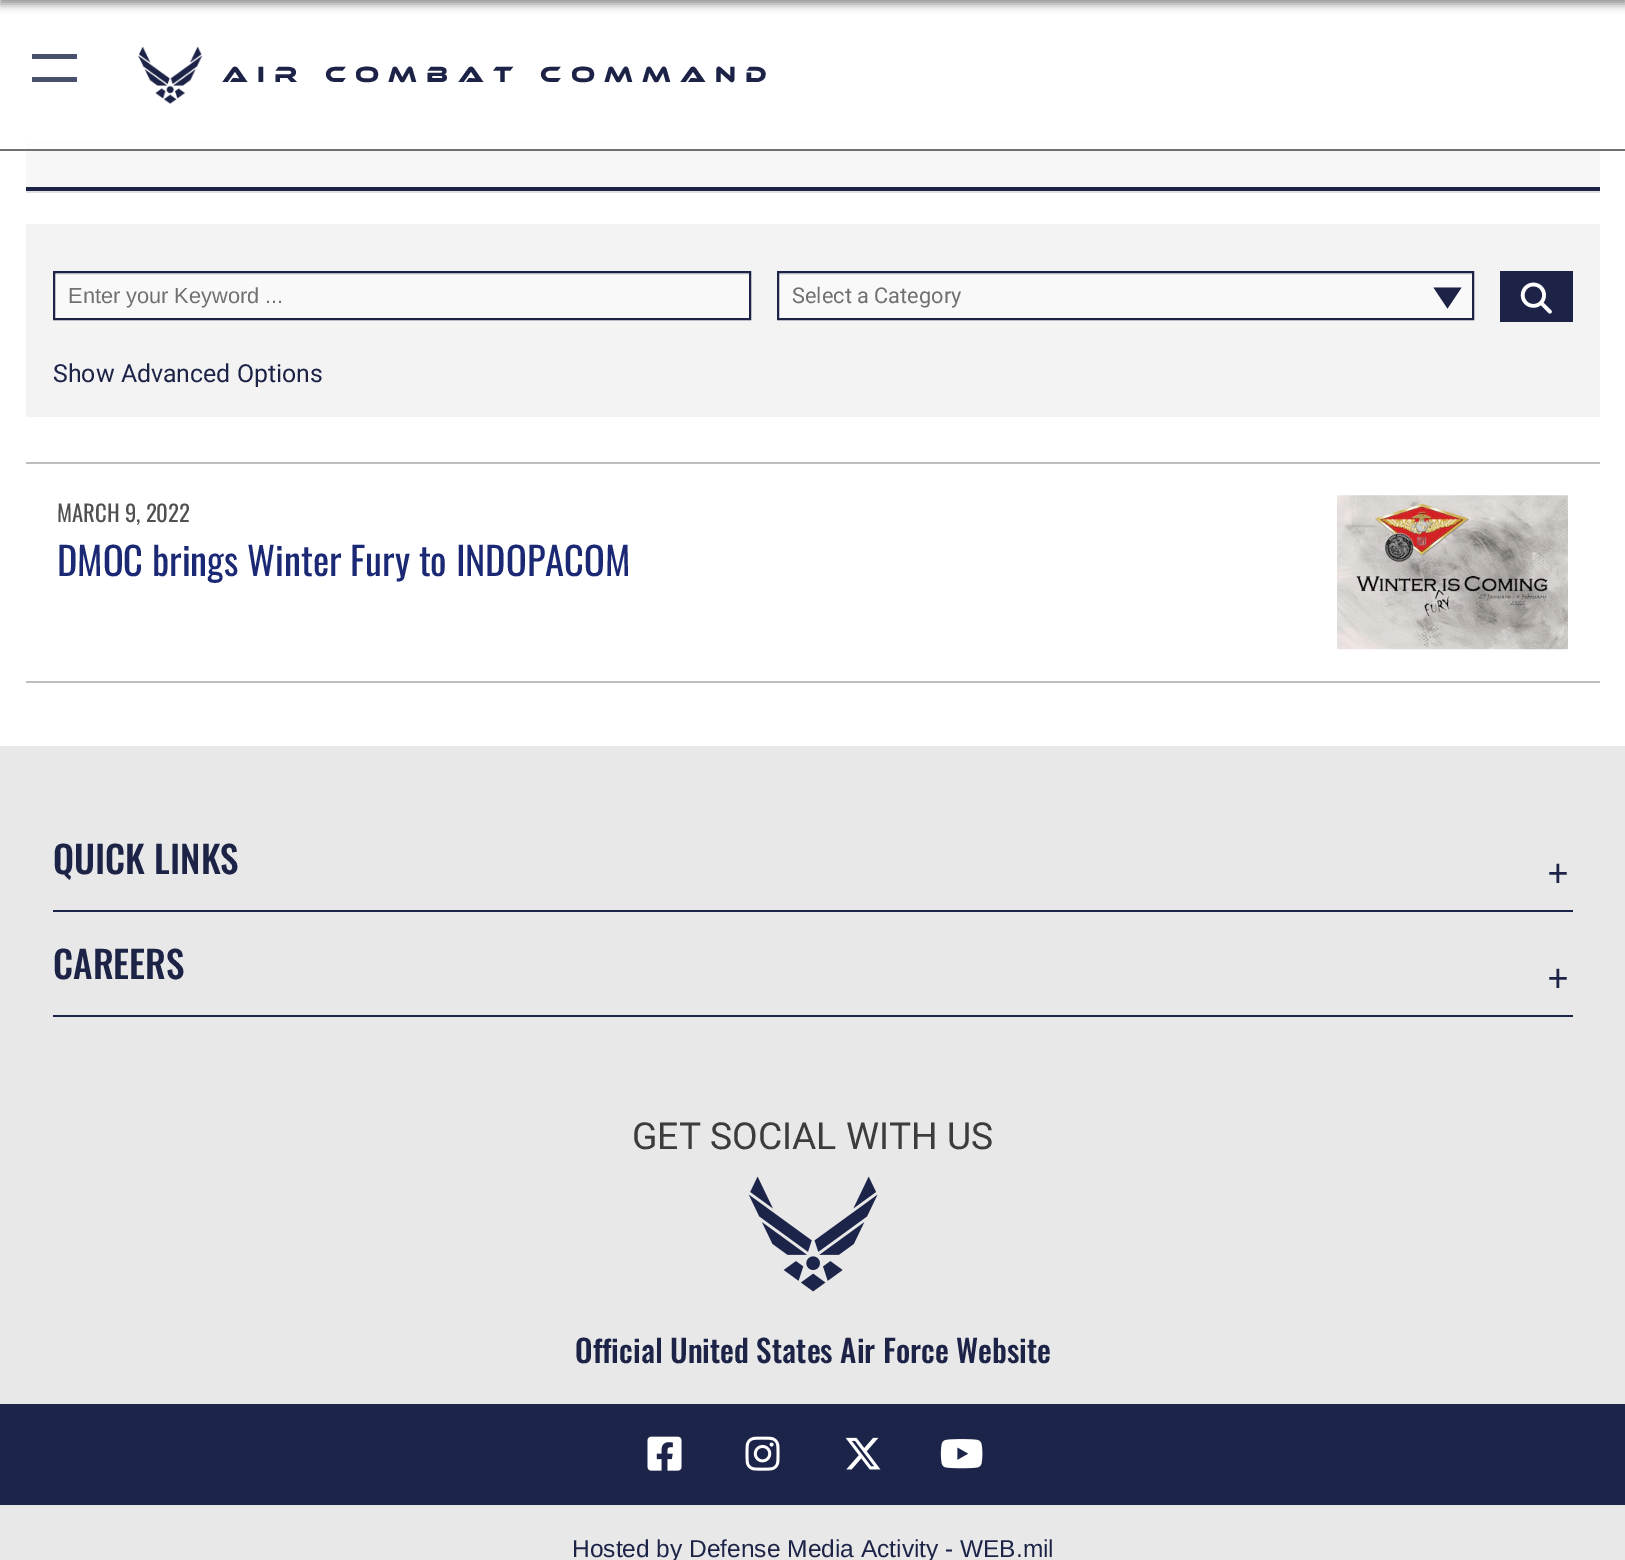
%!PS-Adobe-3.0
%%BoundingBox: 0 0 1625 1560
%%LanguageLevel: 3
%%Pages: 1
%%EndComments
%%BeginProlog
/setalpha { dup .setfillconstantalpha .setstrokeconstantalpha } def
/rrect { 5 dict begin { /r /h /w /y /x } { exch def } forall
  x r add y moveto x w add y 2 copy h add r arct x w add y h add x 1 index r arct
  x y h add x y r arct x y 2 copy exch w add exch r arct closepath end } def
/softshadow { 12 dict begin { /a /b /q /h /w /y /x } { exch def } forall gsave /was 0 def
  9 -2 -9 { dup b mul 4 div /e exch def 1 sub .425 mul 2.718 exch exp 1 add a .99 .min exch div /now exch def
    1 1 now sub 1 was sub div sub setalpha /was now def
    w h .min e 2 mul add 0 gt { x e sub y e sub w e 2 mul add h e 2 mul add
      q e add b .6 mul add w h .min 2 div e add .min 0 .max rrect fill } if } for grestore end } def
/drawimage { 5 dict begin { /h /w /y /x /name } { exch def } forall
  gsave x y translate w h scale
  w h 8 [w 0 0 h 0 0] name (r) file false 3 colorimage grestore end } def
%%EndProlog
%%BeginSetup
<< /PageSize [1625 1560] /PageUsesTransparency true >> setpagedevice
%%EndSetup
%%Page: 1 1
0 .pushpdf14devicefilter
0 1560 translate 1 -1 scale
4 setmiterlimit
1 setgray
0 0 1625 1560 rectfill
0.102 setgray
0 -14 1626 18 0 4.5 0.5 softshadow
gsave newpath 26 142 moveto 1600 142 lineto 1600 187 lineto 26 187 lineto closepath clip newpath
<< /ShadingType 2 /ColorSpace /DeviceRGB /Coords [813 115 813 191] /Extend [true true] /Function << /FunctionType 3 /Domain [0 1] /Functions [<< /FunctionType 2 /Domain [0 1] /C0 [1 1 1] /C1 [1 1 1] /N 1 >> << /FunctionType 2 /Domain [0 1] /C0 [0.969 0.969 0.969] /C1 [0.969 0.969 0.969] /N 1 >>] /Bounds [0.35] /Encode [0 1 0 1] >> >> shfill grestore
0.75 setalpha
1 setgray
26 142 1574 7 rectfill
1 setalpha
0.439 setgray
0 149 1625 2 rectfill
0.286 0.314 0.427 setrgbcolor
32 54 45 5 1 rrect fill
32 77 45 5 1 rrect fill
(images/1.raw) 138 46 65 58 drawimage
0.871 0.886 0.902 setrgbcolor
26 191 1574 2 rectfill
0.11 0.137 0.278 setrgbcolor
26 187 1574 4 rectfill
0.953 setgray
26 224 1574 193 rectfill
0.976 setgray
55 275 694 43 rectfill
0.902 setgray
54 273 695 2 rectfill
0.11 0.137 0.278 setrgbcolor
2 setlinewidth
54 272 696 47 rectstroke
0.976 setgray
779 275 693 43 rectfill
0.902 setgray
779 273 693 2 rectfill
0.11 0.137 0.278 setrgbcolor
778 272 695 47 rectstroke
newpath 1433.5 287.5 moveto 1461.5 287.5 lineto 1447.5 308.5 lineto closepath fill
1500 271 73 51 rectfill
(images/2.raw) 1520 282 32 32 drawimage
0.757 0.741 0.741 setrgbcolor
26 462 1574 2 rectfill
26 681 1574 2 rectfill
(images/3.raw) 1337 495 231 155 drawimage
0.91 setgray
0 746 1625 814 rectfill
0.11 0.141 0.286 setrgbcolor
53 910 1520 2 rectfill
53 1015 1520 2 rectfill
(images/4.raw) 748 1176 130 116 drawimage
0 1404 1625 101 rectfill
(images/5.raw) 647 1436 35 35 drawimage
(images/6.raw) 745 1436 35 35 drawimage
(images/7.raw) 845 1437 36 33 drawimage
(images/8.raw) 940 1439 43 30 drawimage
/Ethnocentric-Regular [22.75 0 0 -22.75 0 0] selectfont
0.11 0.137 0.278 setrgbcolor
222 82 moveto 9.3 0 (Air Combat Command) ashow
/LiberationSans-Regular [21.75 0 0 -21.75 0 0] selectfont
0.439 setgray
68 303 moveto (Enter your Keyword ...) show
/Roboto-Regular [21.75 0 0 -21.75 0 0] selectfont
792 303 moveto (Select a Category) show
/Roboto-Regular [24.9 0 0 -24.9 0 0] selectfont
0.11 0.137 0.278 setrgbcolor
53 382 moveto (Show Advanced Options) show
/Oswald-Regular [22.75 0 0 -22.75 0 0] selectfont
0.314 setgray
57 522 moveto (MARCH 9, 2022) show
/Oswald-Regular [38.5 0 0 -38.5 0 0] selectfont
0.106 0.161 0.455 setrgbcolor
57 576 moveto (DMOC brings Winter Fury to INDOPACOM) show
/Oswald-Medium [37.25 0 0 -37.25 0 0] selectfont
0.11 0.137 0.278 setrgbcolor
53 874 moveto (QUICK LINKS) show
/Oswald-Light [52 0 0 -52 0 0] selectfont
1548 895 moveto (+) show
/Oswald-Medium [37.25 0 0 -37.25 0 0] selectfont
53 979 moveto (CAREERS) show
/Oswald-Light [52 0 0 -52 0 0] selectfont
1548 1000 moveto (+) show
/Roboto-Regular [37.25 0 0 -37.25 0 0] selectfont
0.239 0.235 0.235 setrgbcolor
632 1149 moveto (GET SOCIAL WITH US) show
/Oswald-Medium [31.1 0 0 -31.1 0 0] selectfont
0.11 0.137 0.278 setrgbcolor
575 1363 moveto (Official United States Air Force Website) show
/LiberationSans-Regular [24.5 0 0 -24.5 0 0] selectfont
572 1557 moveto (Hosted by Defense Media Activity - WEB.mil) show
.poppdf14devicefilter showpage
%%EOF
